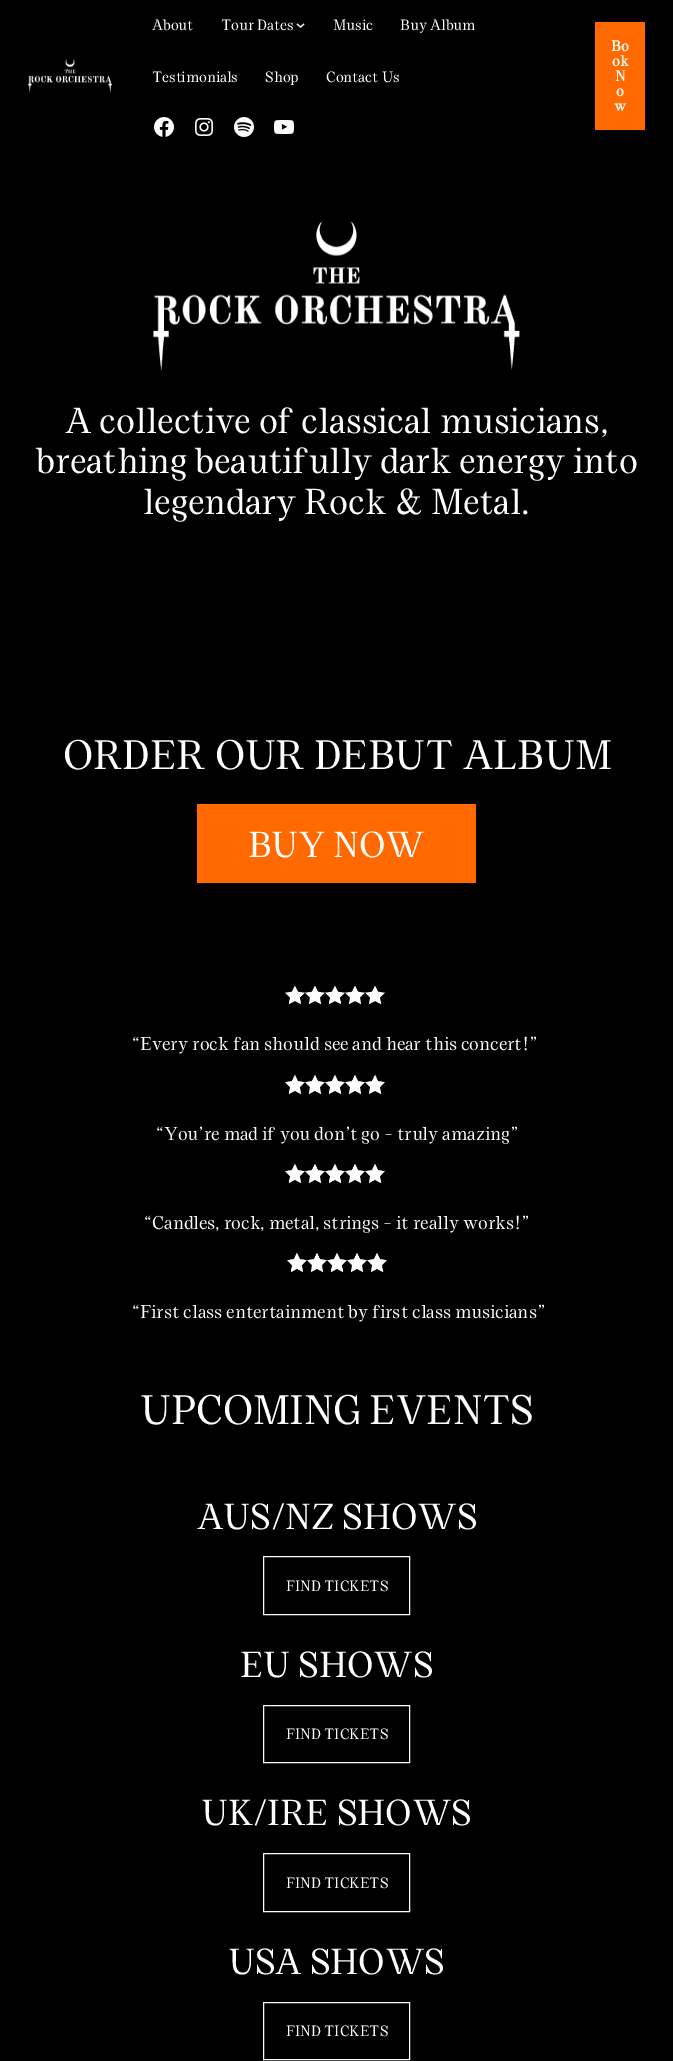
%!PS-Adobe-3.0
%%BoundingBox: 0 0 673 2061
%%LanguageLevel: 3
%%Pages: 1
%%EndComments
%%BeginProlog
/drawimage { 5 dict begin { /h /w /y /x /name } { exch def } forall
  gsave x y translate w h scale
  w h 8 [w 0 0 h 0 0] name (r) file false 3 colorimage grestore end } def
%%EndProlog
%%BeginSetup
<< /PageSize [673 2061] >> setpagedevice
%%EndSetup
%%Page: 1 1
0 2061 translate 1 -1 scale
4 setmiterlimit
0 setgray
0 0 673 2061 rectfill
(images/1.raw) 28 59 84 34 drawimage
1 setgray
1.1 setlinewidth
newpath 297 24 moveto 300.5 27 lineto 304 24 lineto stroke
(images/2.raw) 154 117 20 20 drawimage
(images/3.raw) 195 118 18 18 drawimage
(images/4.raw) 234 117 20 20 drawimage
(images/5.raw) 274 120 20 14 drawimage
1 0.412 0 setrgbcolor
595 22 50 108 rectfill
(images/6.raw) 153 221 367 150 drawimage
197 804 279 79 rectfill
(images/7.raw) 285 985 100 20 drawimage
(images/8.raw) 285 1074 100 21 drawimage
(images/8.raw) 285 1163 100 21 drawimage
(images/9.raw) 287 1252 100 21 drawimage
0.988 0.988 0.98 setrgbcolor
1 setlinewidth
263.5 1556.5 146 58 rectstroke
263.5 1705.5 146 57 rectstroke
263.5 1853.5 146 58 rectstroke
263.5 2002.5 146 57 rectstroke
/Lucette-Regular [15.25 0 0 -15.25 0 0] selectfont
1 setgray
152 30 moveto -0.1 0 (About) ashow
221 30 moveto -0.1 0 (Tour Dates) ashow
333 30 moveto -0.1 0 (Music) ashow
400 30 moveto -0.1 0 (Buy Album) ashow
152 82 moveto -0.1 0 (Testimonials) ashow
265 82 moveto -0.1 0 (Shop) ashow
326 82 moveto -0.1 0 (Contact Us) ashow
/Lucette-Bold [15.25 0 0 -15.25 0 0] selectfont
611 51 moveto -0.1 0 (Bo) ashow
612 66 moveto -0.1 0 (ok) ashow
615 81 moveto -0.1 0 (N) ashow
616 96 moveto -0.1 0 (o) ashow
614 111 moveto -0.1 0 (w) ashow
/Lucette-Regular [37 0 0 -37 0 0] selectfont
65 433 moveto -0.35 0 (A collective of classical musicians,) ashow
36 473 moveto -0.35 0 (breathing beautifully dark energy into) ashow
143 514 moveto -0.35 0 (legendary Rock & Metal.) ashow
/Lucette-Regular [42.25 0 0 -42.25 0 0] selectfont
63 769 moveto -0.4 0 (ORDER OUR DEBUT ALBUM) ashow
/Lucette-Regular [37 0 0 -37 0 0] selectfont
248 857 moveto -0.35 0 (BUY NOW) ashow
/Lucette-Regular [18.95 0 0 -18.95 0 0] selectfont
132 1050 moveto -0.2 0 (“Every rock fan should see and hear this concert!”) ashow
156 1140 moveto -0.2 0 (“You’re mad if you don’t go – truly amazing”) ashow
144 1229 moveto -0.2 0 (“Candles, rock, metal, strings – it really works!”) ashow
132 1318 moveto -0.2 0 (“First class entertainment by first class musicians”) ashow
/Lucette-Regular [42.25 0 0 -42.25 0 0] selectfont
140 1424 moveto -0.4 0 (UPCOMING EVENTS) ashow
/Lucette-Regular [37 0 0 -37 0 0] selectfont
197 1529 moveto -0.35 0 (AUS/NZ SHOWS) ashow
/Lucette-Regular [15.25 0 0 -15.25 0 0] selectfont
286 1591 moveto -0.1 0 (FIND TICKETS) ashow
/Lucette-Regular [37 0 0 -37 0 0] selectfont
240 1677 moveto -0.35 0 (EU SHOWS) ashow
/Lucette-Regular [15.25 0 0 -15.25 0 0] selectfont
286 1739 moveto -0.1 0 (FIND TICKETS) ashow
/Lucette-Regular [37 0 0 -37 0 0] selectfont
201 1825 moveto -0.35 0 (UK/IRE SHOWS) ashow
/Lucette-Regular [15.25 0 0 -15.25 0 0] selectfont
286 1888 moveto -0.1 0 (FIND TICKETS) ashow
/Lucette-Regular [37 0 0 -37 0 0] selectfont
228 1974 moveto -0.35 0 (USA SHOWS) ashow
/Lucette-Regular [15.25 0 0 -15.25 0 0] selectfont
286 2036 moveto -0.1 0 (FIND TICKETS) ashow
showpage
%%EOF
